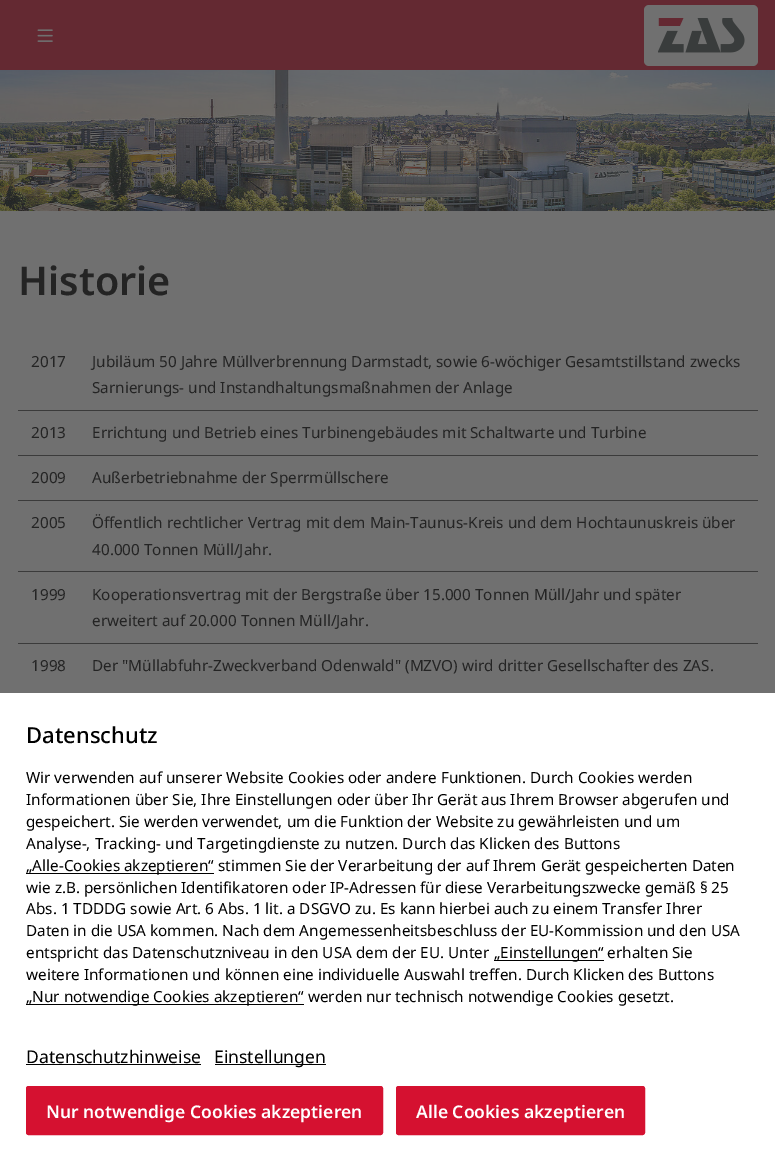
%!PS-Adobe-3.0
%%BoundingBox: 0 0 775 1161
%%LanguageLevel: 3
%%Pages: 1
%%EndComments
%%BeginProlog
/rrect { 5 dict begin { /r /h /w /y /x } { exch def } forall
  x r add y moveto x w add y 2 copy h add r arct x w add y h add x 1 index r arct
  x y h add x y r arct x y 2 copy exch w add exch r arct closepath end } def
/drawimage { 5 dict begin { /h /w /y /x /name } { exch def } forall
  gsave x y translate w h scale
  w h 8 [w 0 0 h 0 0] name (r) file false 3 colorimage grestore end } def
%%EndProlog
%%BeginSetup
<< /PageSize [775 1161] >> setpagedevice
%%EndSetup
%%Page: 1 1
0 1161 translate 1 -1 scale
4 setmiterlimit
0.439 setgray
0 0 775 1161 rectfill
0.392 0.161 0.196 setrgbcolor
0 0 775 70 rectfill
(images/1.raw) 37 29 16 13 drawimage
0.439 setgray
644 5 114 61 5 rrect fill
(images/2.raw) 658 18 87 35 drawimage
(images/3.raw) 0 70 775 141 drawimage
0.231 setgray
18 410 740 1 rectfill
18 455 740 1 rectfill
18 500 740 1 rectfill
18 571 740 1 rectfill
18 643 740 1 rectfill
1 setgray
0 693 775 468 rectfill
0 setgray
26 873 188 1 rectfill
494 960 110 1 rectfill
26 1004 278 1 rectfill
26 1064 175 1 rectfill
215 1064 111 1 rectfill
0.835 0.067 0.188 setrgbcolor
27.5 1087.5 354 46 1 rrect gsave fill grestore
3 setlinewidth
stroke
397.5 1087.5 246 46 1 rrect gsave fill grestore
stroke
/NotoSans-SemiBold [39.5 0 0 -39.5 0 0] selectfont
0.141 setgray
18 295 moveto (Historie) show
/NotoSans-Regular [15.3 0 0 -15.3 0 0] selectfont
31 367 moveto (2017) show
92 367 moveto (Jubiläum 50 Jahre Müllverbrennung Darmstadt, sowie 6-wöchiger Gesamtstillstand zwecks) show
92 393 moveto (Sarnierungs- und Instandhaltungsmaßnahmen der Anlage) show
31 438 moveto (2013) show
92 438 moveto (Errichtung und Betrieb eines Turbinengebäudes mit Schaltwarte und Turbine) show
31 483 moveto (2009) show
92 483 moveto (Außerbetriebnahme der Sperrmüllschere) show
31 528 moveto (2005) show
92 528 moveto (Öffentlich rechtlicher Vertrag mit dem Main-Taunus-Kreis und dem Hochtaunuskreis über) show
92 555 moveto (40.000 Tonnen Müll/Jahr.) show
31 600 moveto (1999) show
92 600 moveto (Kooperationsvertrag mit der Bergstraße über 15.000 Tonnen Müll/Jahr und später) show
92 626 moveto (erweitert auf 20.000 Tonnen Müll/Jahr.) show
31 671 moveto (1998) show
92 671 moveto (Der "Müllabfuhr-Zweckverband Odenwald" \(MZVO\) wird dritter Gesellschafter des ZAS.) show
/NotoSans-Medium [22 0 0 -22 0 0] selectfont
0 setgray
26 743 moveto (Datenschutz) show
/NotoSans-Regular [15.3 0 0 -15.3 0 0] selectfont
26 783 moveto (Wir verwenden auf unserer Website Cookies oder andere Funktionen. Durch Cookies werden) show
26 805 moveto (Informationen über Sie, Ihre Einstellungen oder über Ihr Gerät aus Ihrem Browser abgerufen und) show
26 827 moveto (gespeichert. Sie werden verwendet, um die Funktion der Website zu gewährleisten und um) show
26 849 moveto (Analyse-, Tracking- und Targetingdienste zu nutzen. Durch das Klicken des Buttons) show
26 871 moveto („Alle-Cookies akzeptieren“ stimmen Sie der Verarbeitung der auf Ihrem Gerät gespeicherten Daten) show
26 893 moveto (wie z.B. persönlichen Identifikatoren oder IP-Adressen für diese Verarbeitungszwecke gemäß § 25) show
26 914 moveto (Abs. 1 TDDDG sowie Art. 6 Abs. 1 lit. a DSGVO zu. Es kann hierbei auch zu einem Transfer Ihrer) show
26 936 moveto (Daten in die USA kommen. Nach dem Angemessenheitsbeschluss der EU-Kommission und den USA) show
26 958 moveto (entspricht das Datenschutzniveau in den USA dem der EU. Unter) show
494 958 moveto („Einstellungen“ erhalten Sie) show
26 980 moveto (weitere Informationen und können eine individuelle Auswahl treffen. Durch Klicken des Buttons) show
26 1002 moveto („Nur notwendige Cookies akzeptieren“ werden nur technisch notwendige Cookies gesetzt.) show
/NotoSans-Regular [17.5 0 0 -17.5 0 0] selectfont
26 1063 moveto (Datenschutzhinweise) show
214 1063 moveto (Einstellungen) show
/NotoSans-SemiBold [17.5 0 0 -17.5 0 0] selectfont
1 setgray
46 1118 moveto (Nur notwendige Cookies akzeptieren) show
416 1118 moveto (Alle Cookies akzeptieren) show
showpage
%%EOF
